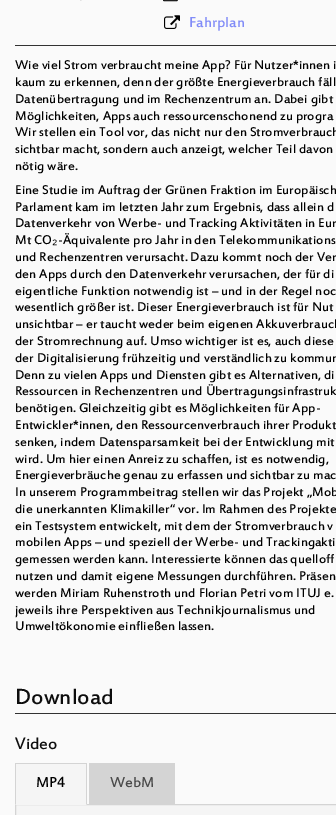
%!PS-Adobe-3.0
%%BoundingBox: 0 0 336 815
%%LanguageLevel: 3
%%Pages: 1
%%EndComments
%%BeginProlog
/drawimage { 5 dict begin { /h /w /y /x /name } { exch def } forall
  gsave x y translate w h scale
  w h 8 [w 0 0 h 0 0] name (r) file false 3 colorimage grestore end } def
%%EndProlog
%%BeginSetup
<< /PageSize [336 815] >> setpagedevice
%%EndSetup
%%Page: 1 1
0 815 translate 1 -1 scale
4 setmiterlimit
0.98 setgray
0 0 336 815 rectfill
0.196 setgray
15 45 321 1 rectfill
(images/1.raw) 80 0 2 1 drawimage
(images/2.raw) 163 0 15 2 drawimage
(images/3.raw) 164 15 16 14 drawimage
15 713 321 1 rectfill
0.961 setgray
newpath 15.5 804.5 moveto 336.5 804.5 lineto 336.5 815.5 lineto 15.5 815.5 lineto closepath gsave fill grestore
0.831 setgray
stroke
0.961 setgray
15 764 72 41 rectfill
0.831 setgray
15 763 72 1 rectfill
newpath 87 763 moveto 87 805 lineto 86 804 lineto 86 764 lineto closepath fill
newpath 15 805 moveto 15 763 lineto 16 764 lineto 16 804 lineto closepath fill
89 763 86 41 rectfill
/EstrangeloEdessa-Regular [16 0 0 -16 0 0] selectfont
0.506 0.549 0.973 setrgbcolor
189 27 moveto (Fahrplan) show
/EstrangeloEdessa-Regular [14 0 0 -14 0 0] selectfont
0 setgray
15 69 moveto (Wie viel Strom verbraucht meine App? Für Nutzer*innen i) show
15 86 moveto (kaum zu erkennen, denn der größte Energieverbrauch fäll) show
15 103 moveto (Datenübertragung und im Rechenzentrum an. Dabei gibt) show
15 120 moveto (Möglichkeiten, Apps auch ressourcenschonend zu progra) show
15 136 moveto (Wir stellen ein Tool vor, das nicht nur den Stromverbrauch) show
15 153 moveto (sichtbar macht, sondern auch anzeigt, welcher Teil davon) show
15 170 moveto (nötig wäre.) show
15 194 moveto (Eine Studie im Auftrag der Grünen Fraktion im Europäisch) show
15 211 moveto (Parlament kam im letzten Jahr zum Ergebnis, dass allein d) show
15 227 moveto (Datenverkehr von Werbe- und Tracking Aktivitäten in Eur) show
15 244 moveto (Mt CO) show
/LiberationSans-Regular [14 0 0 -14 0 0] selectfont
52 244 moveto (₂) show
/EstrangeloEdessa-Regular [14 0 0 -14 0 0] selectfont
58 244 moveto (-Äquivalente pro Jahr in den Telekommunikations) show
15 261 moveto (und Rechenzentren verursacht. Dazu kommt noch der Ver) show
15 278 moveto (den Apps durch den Datenverkehr verursachen, der für di) show
15 295 moveto (eigentliche Funktion notwendig ist – und in der Regel noc) show
15 311 moveto (wesentlich größer ist. Dieser Energieverbrauch ist für Nut) show
15 328 moveto (unsichtbar – er taucht weder beim eigenen Akkuverbrauch) show
15 345 moveto (der Stromrechnung auf. Umso wichtiger ist es, auch diese) show
15 362 moveto (der Digitalisierung frühzeitig und verständlich zu kommun) show
15 379 moveto (Denn zu vielen Apps und Diensten gibt es Alternativen, di) show
15 395 moveto (Ressourcen in Rechenzentren und Übertragungsinfrastruk) show
15 412 moveto (benötigen. Gleichzeitig gibt es Möglichkeiten für App-) show
15 429 moveto (Entwickler*innen, den Ressourcenverbrauch ihrer Produkt) show
15 446 moveto (senken, indem Datensparsamkeit bei der Entwicklung mit) show
15 463 moveto (wird. Um hier einen Anreiz zu schaffen, ist es notwendig,) show
15 479 moveto (Energieverbräuche genau zu erfassen und sichtbar zu mac) show
15 496 moveto (In unserem Programmbeitrag stellen wir das Projekt „Mob) show
15 513 moveto (die unerkannten Klimakiller“ vor. Im Rahmen des Projekte) show
15 530 moveto (ein Testsystem entwickelt, mit dem der Stromverbrauch v) show
15 546 moveto (mobilen Apps – und speziell der Werbe- und Trackingakti) show
15 563 moveto (gemessen werden kann. Interessierte können das quelloff) show
15 580 moveto (nutzen und damit eigene Messungen durchführen. Präsen) show
15 597 moveto (werden Miriam Ruhenstroth und Florian Petri vom ITUJ e.) show
15 614 moveto (jeweils ihre Perspektiven aus Technikjournalismus und) show
15 630 moveto (Umweltökonomie einfließen lassen.) show
/EstrangeloEdessa-Regular [24 0 0 -24 0 0] selectfont
0.051 setgray
15 704 moveto (Download) show
/EstrangeloEdessa-Regular [18 0 0 -18 0 0] selectfont
15 749 moveto (Video) show
/EstrangeloEdessa-Regular [16 0 0 -16 0 0] selectfont
0 setgray
36 787 moveto (MP4) show
0.29 setgray
110 787 moveto (WebM) show
showpage
%%EOF
